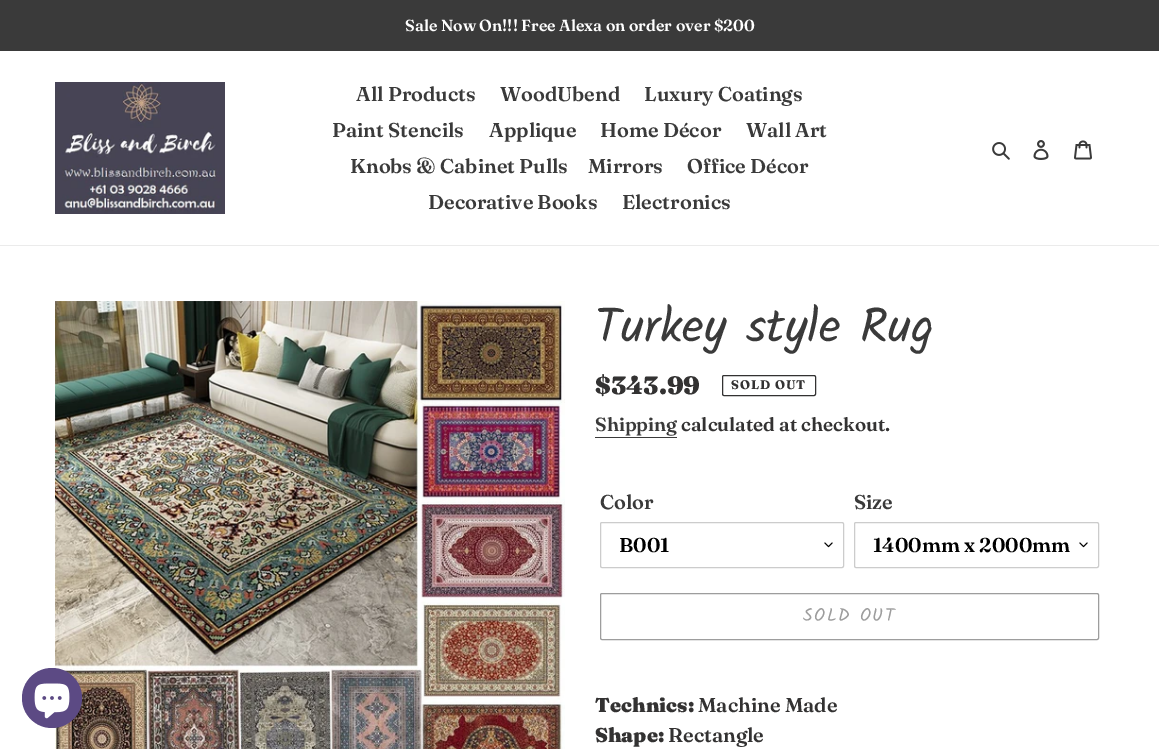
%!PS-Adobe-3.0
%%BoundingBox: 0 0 1159 749
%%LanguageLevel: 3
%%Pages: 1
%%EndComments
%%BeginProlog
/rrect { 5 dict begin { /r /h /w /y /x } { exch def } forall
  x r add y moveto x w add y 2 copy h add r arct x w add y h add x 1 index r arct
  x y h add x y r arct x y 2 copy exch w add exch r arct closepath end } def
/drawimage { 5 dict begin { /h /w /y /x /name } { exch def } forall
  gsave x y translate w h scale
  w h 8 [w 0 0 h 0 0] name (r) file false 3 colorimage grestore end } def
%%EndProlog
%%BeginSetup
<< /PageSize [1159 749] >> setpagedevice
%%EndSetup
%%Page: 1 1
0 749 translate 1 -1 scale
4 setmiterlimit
1 setgray
0 0 1159 749 rectfill
0.227 setgray
0 0 1159 51 rectfill
0.922 setgray
0 245 1159 1 rectfill
(images/1.raw) 55 82 170 132 drawimage
(images/2.raw) 992 142 18 18 drawimage
(images/3.raw) 1033 140 16 20 drawimage
(images/4.raw) 1074 140 18 20 drawimage
(images/6.raw) 55 301 510 448 drawimage
0.361 0.29 0.518 setrgbcolor
newpath 52 698 30 0 360 arc closepath fill
(images/5.raw) 34 683 36 36 drawimage
0.2 0.196 0.196 setrgbcolor
722.5 375.5 93 20 1.5 rrect stroke
0.227 setgray
595 437 82 1 rectfill
(images/7.raw) 824 542 9 6 drawimage
0.8 setgray
600.5 522.5 243 45 1.5 rrect stroke
(images/7.raw) 1079 542 9 6 drawimage
854.5 522.5 244 45 1.5 rrect stroke
0.616 setgray
600.5 593.5 498 46 1.5 rrect stroke
/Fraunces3-SemiBold [16 0 0 -16 0 0] selectfont
1 setgray
405 31 moveto (Sale Now On!!! Free Alexa on order over $200) show
/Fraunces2-SemiBold [20 0 0 -20 0 0] selectfont
0.227 setgray
356 101 moveto (All Products) show
500 101 moveto (WoodUbend) show
644 101 moveto (Luxury Coatings) show
332 137 moveto (Paint Stencils) show
489 137 moveto (Applique) show
600 137 moveto (Home Décor) show
746 137 moveto (Wall Art) show
350 173 moveto (Knobs & Cabinet Pulls) show
588 173 moveto (Mirrors) show
687 173 moveto (Office Décor) show
428 209 moveto (Decorative Books) show
622 209 moveto (Electronics) show
/Kalam-Regular [48 0 0 -48 0 0] selectfont
595 342 moveto (Turkey style Rug) show
/Fraunces-Black [25 0 0 -25 0 0] selectfont
0.2 0.196 0.196 setrgbcolor
595 394 moveto ($343.99) show
/Fraunces-Bold [12.5 0 0 -12.5 0 0] selectfont
731 389 moveto 1 0 (SOLD OUT) ashow
/Fraunces-SemiBold [19 0 0 -19 0 0] selectfont
0.227 setgray
595 431 moveto (Shipping) show
0.2 0.196 0.196 setrgbcolor
681 431 moveto (calculated at checkout.) show
/Fraunces2-SemiBold [20 0 0 -20 0 0] selectfont
0.227 setgray
600 509 moveto (Color) show
0 setgray
619 552 moveto (B001) show
0.227 setgray
854 509 moveto (Size) show
0 setgray
873 552 moveto (1400mm x 2000mm) show
/Kalam-Regular [18 0 0 -18 0 0] selectfont
0.616 setgray
803 621 moveto 1.5 0 (SOLD OUT) ashow
/Fraunces2-Black [20 0 0 -20 0 0] selectfont
0.2 0.196 0.196 setrgbcolor
595 712 moveto (Technics:) show
/Fraunces2-SemiBold [20 0 0 -20 0 0] selectfont
698 712 moveto (Machine Made) show
/Fraunces2-Black [20 0 0 -20 0 0] selectfont
595 742 moveto (Shape:) show
/Fraunces2-SemiBold [20 0 0 -20 0 0] selectfont
668 742 moveto (Rectangle) show
showpage
%%EOF
